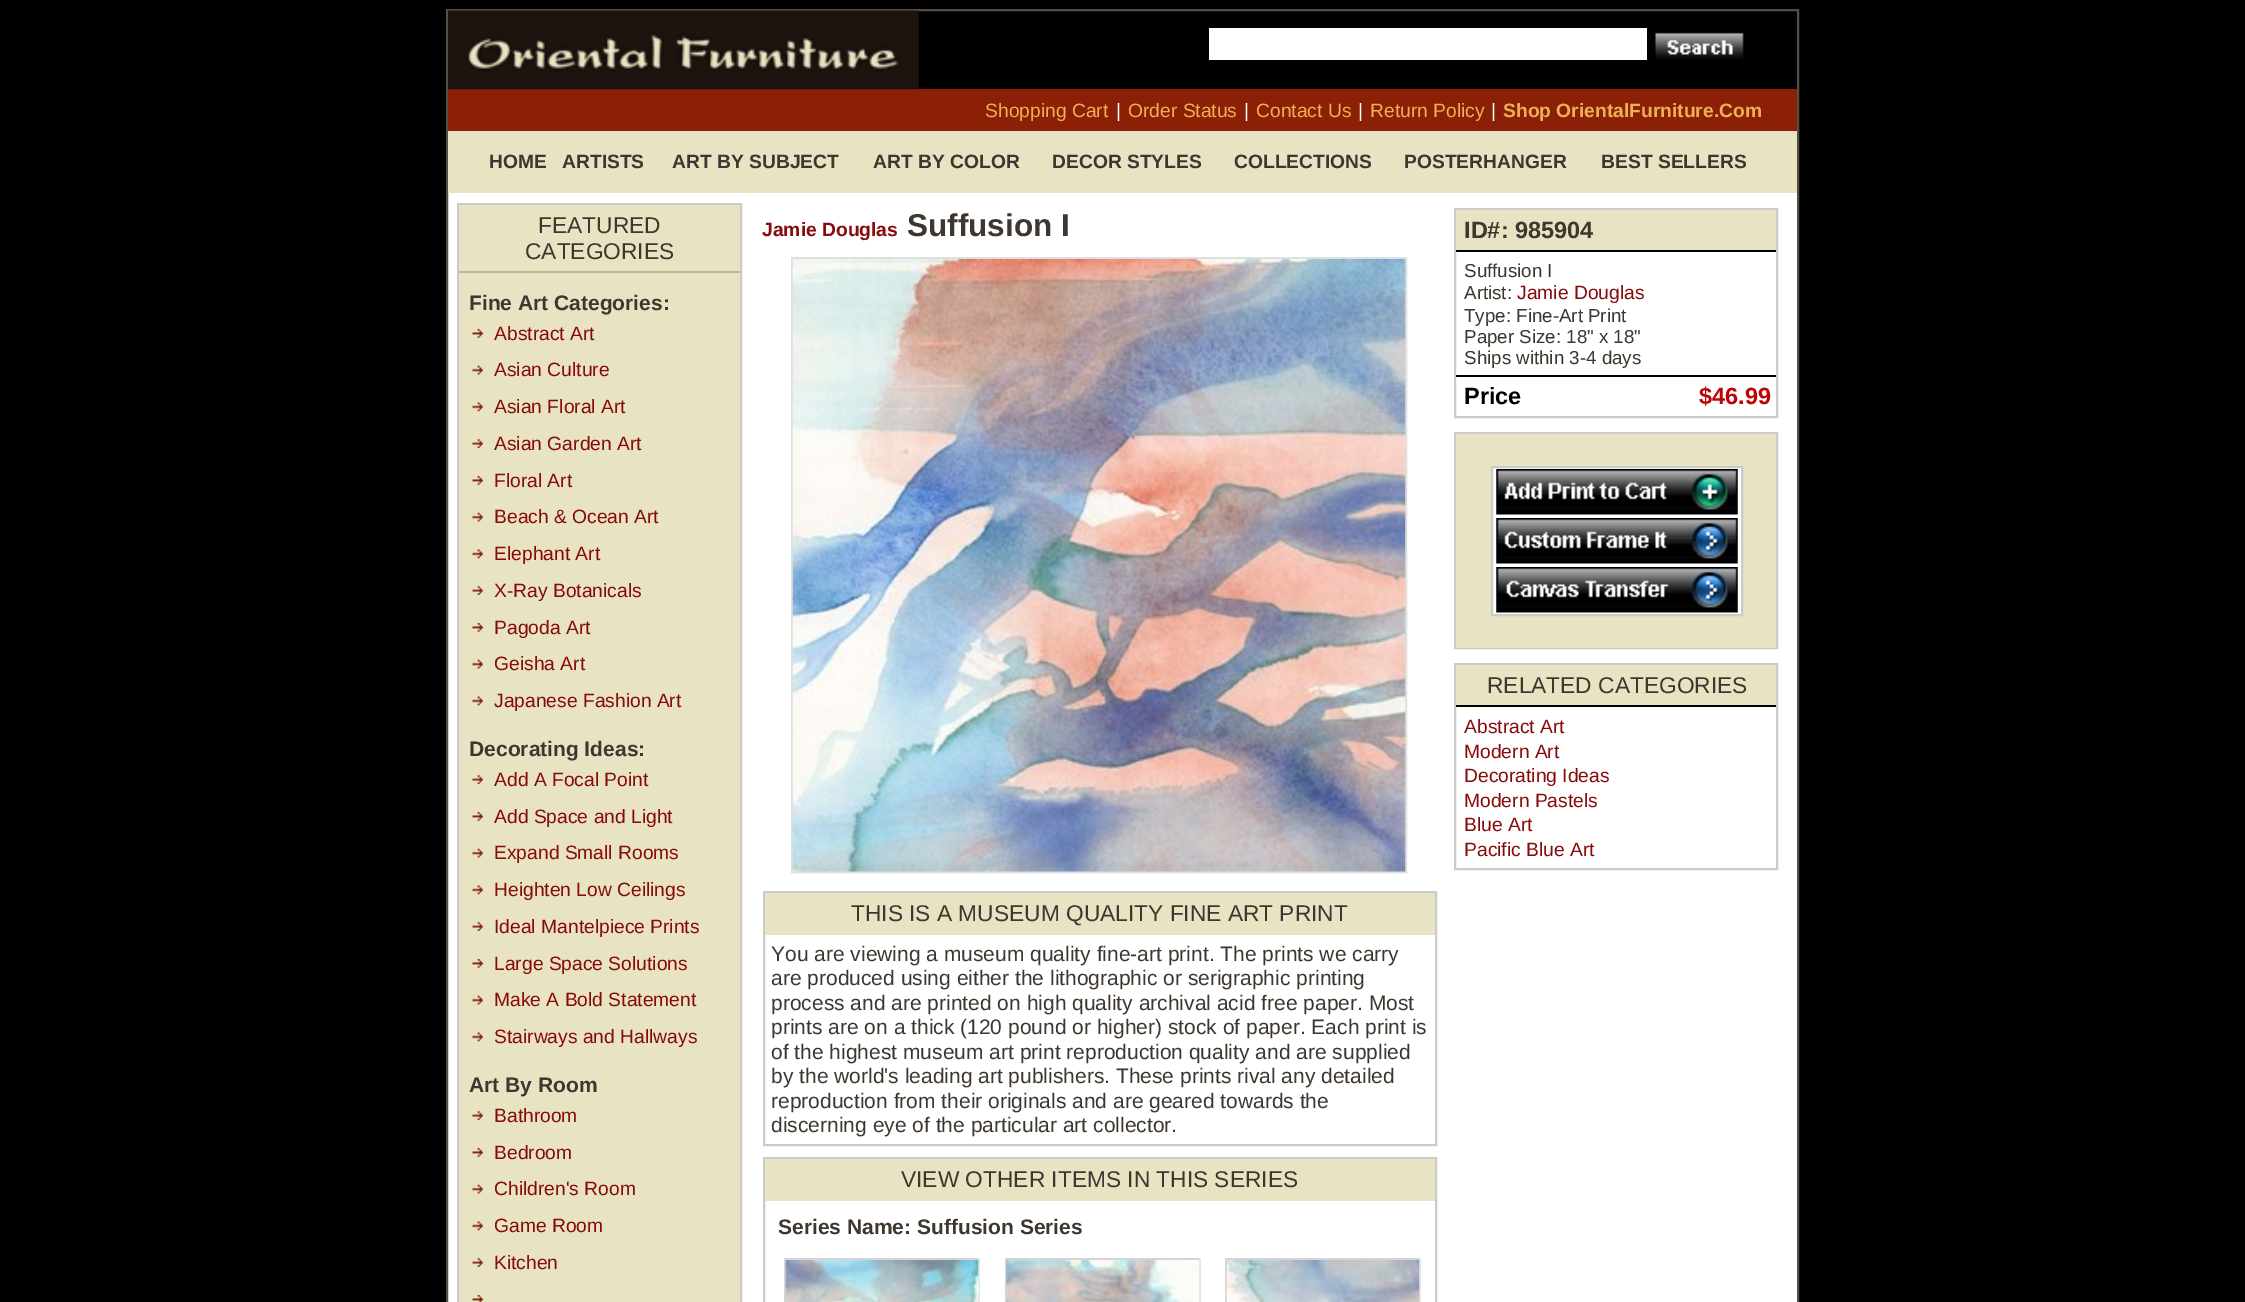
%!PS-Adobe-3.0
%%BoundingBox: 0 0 2245 1302
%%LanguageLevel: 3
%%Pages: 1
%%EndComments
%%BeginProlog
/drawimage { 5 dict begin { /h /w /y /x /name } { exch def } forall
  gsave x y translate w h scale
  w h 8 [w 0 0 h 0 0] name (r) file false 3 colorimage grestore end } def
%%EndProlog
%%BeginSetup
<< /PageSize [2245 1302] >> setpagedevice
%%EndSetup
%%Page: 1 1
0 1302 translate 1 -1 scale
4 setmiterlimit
0 setgray
0 0 2245 1302 rectfill
1 setgray
448 193 1349 1109 rectfill
0.337 0.306 0.255 setrgbcolor
2 setlinewidth
447 10 1351 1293 rectstroke
0.545 0.125 0.024 setrgbcolor
448 89 1349 42 rectfill
(images/1.raw) 448 10 471 80 drawimage
1 setgray
1209 28 438 32 rectfill
(images/2.raw) 1655 32 89 27 drawimage
0.91 0.89 0.765 setrgbcolor
448 131 1349 62 rectfill
0.804 0.796 0.78 setrgbcolor
458 204 283 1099 rectstroke
0.91 0.89 0.765 setrgbcolor
459 205 281 66 rectfill
459 273 281 1029 rectfill
0.737 0.722 0.62 setrgbcolor
459 271 281 2 rectfill
(images/3.raw) 472 329 11 9 drawimage
(images/4.raw) 472 365 11 10 drawimage
(images/5.raw) 472 402 11 10 drawimage
(images/6.raw) 472 439 11 9 drawimage
(images/3.raw) 472 476 11 9 drawimage
(images/4.raw) 472 512 11 10 drawimage
(images/5.raw) 472 549 11 10 drawimage
(images/6.raw) 472 586 11 9 drawimage
(images/3.raw) 472 623 11 9 drawimage
(images/4.raw) 472 659 11 10 drawimage
(images/5.raw) 472 696 11 10 drawimage
(images/6.raw) 472 775 11 9 drawimage
(images/3.raw) 472 812 11 9 drawimage
(images/4.raw) 472 848 11 10 drawimage
(images/5.raw) 472 885 11 10 drawimage
(images/6.raw) 472 922 11 9 drawimage
(images/3.raw) 472 959 11 9 drawimage
(images/4.raw) 472 995 11 10 drawimage
(images/5.raw) 472 1032 11 10 drawimage
(images/6.raw) 472 1111 11 9 drawimage
(images/3.raw) 472 1148 11 9 drawimage
(images/4.raw) 472 1184 11 10 drawimage
(images/5.raw) 472 1221 11 10 drawimage
(images/6.raw) 472 1258 11 9 drawimage
(images/7.raw) 472 1295 11 7 drawimage
0.875 setgray
792 258 614 614 rectstroke
(images/8.raw) 792 259 614 613 drawimage
0.804 0.796 0.78 setrgbcolor
764 892 672 253 rectstroke
0.91 0.89 0.765 setrgbcolor
765 893 670 42 rectfill
0.804 0.796 0.78 setrgbcolor
764 1158 672 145 rectstroke
0.91 0.89 0.765 setrgbcolor
765 1159 670 42 rectfill
0.835 setgray
784 1258 196 2 rectfill
784 1258 2 44 rectfill
0.906 setgray
978 1258 2 44 rectfill
(images/9.raw) 785 1260 194 42 drawimage
0.835 setgray
1005 1258 196 2 rectfill
1005 1258 2 44 rectfill
0.906 setgray
1199 1258 2 44 rectfill
(images/10.raw) 1006 1260 193 42 drawimage
0.835 setgray
1225 1258 196 2 rectfill
1225 1258 2 44 rectfill
0.906 setgray
1419 1258 2 44 rectfill
(images/11.raw) 1226 1260 194 42 drawimage
0.804 0.796 0.78 setrgbcolor
1455 209 322 208 rectstroke
0.91 0.89 0.765 setrgbcolor
1456 210 320 40 rectfill
0 setgray
1456 250 320 2 rectfill
1456 375 320 2 rectfill
0.804 0.796 0.78 setrgbcolor
1455 433 322 215 rectstroke
0.91 0.89 0.765 setrgbcolor
1456 434 320 214 rectfill
1 setgray
newpath 1492 467 moveto 1742 467 lineto 1742 615 lineto 1492 615 lineto closepath gsave fill grestore
0.804 0.796 0.78 setrgbcolor
stroke
(images/12.raw) 1496 469 242 46 drawimage
(images/13.raw) 1496 518 242 46 drawimage
(images/14.raw) 1496 567 242 46 drawimage
1455 664 322 205 rectstroke
0.91 0.89 0.765 setrgbcolor
1456 665 320 40 rectfill
0 setgray
1456 705 320 2 rectfill
/LiberationSans-Regular [19.25 0 0 -19.25 0 0] selectfont
0.929 0.69 0.325 setrgbcolor
985 117 moveto (Shopping Cart) show
1 setgray
1116 117 moveto (|) show
0.929 0.69 0.325 setrgbcolor
1128 117 moveto (Order Status) show
1 setgray
1244 117 moveto (|) show
0.929 0.69 0.325 setrgbcolor
1256 117 moveto (Contact Us) show
1 setgray
1358 117 moveto (|) show
0.929 0.69 0.325 setrgbcolor
1370 117 moveto (Return Policy) show
1 setgray
1491 117 moveto (|) show
/LiberationSans-Bold [19.25 0 0 -19.25 0 0] selectfont
0.929 0.69 0.325 setrgbcolor
1503 117 moveto (Shop OrientalFurniture.Com) show
0.243 0.216 0.184 setrgbcolor
489 168 moveto (HOME) show
562 168 moveto (ARTISTS) show
672 168 moveto (ART BY SUBJECT) show
873 168 moveto (ART BY COLOR) show
1052 168 moveto (DECOR STYLES) show
1234 168 moveto (COLLECTIONS) show
1404 168 moveto (POSTERHANGER) show
1601 168 moveto (BEST SELLERS) show
/LiberationSans-Regular [22.75 0 0 -22.75 0 0] selectfont
538 233 moveto (FEATURED) show
525 259 moveto (CATEGORIES) show
/LiberationSans-Bold [21 0 0 -21 0 0] selectfont
469 310 moveto (Fine Art Categories:) show
/LiberationSans-Regular [19.25 0 0 -19.25 0 0] selectfont
0.533 0.043 0.043 setrgbcolor
494 340 moveto (Abstract Art) show
494 376 moveto (Asian Culture) show
494 413 moveto (Asian Floral Art) show
494 450 moveto (Asian Garden Art) show
494 487 moveto (Floral Art) show
494 523 moveto (Beach & Ocean Art) show
494 560 moveto (Elephant Art) show
494 597 moveto (X-Ray Botanicals) show
494 634 moveto (Pagoda Art) show
494 670 moveto (Geisha Art) show
494 707 moveto (Japanese Fashion Art) show
/LiberationSans-Bold [21 0 0 -21 0 0] selectfont
0.243 0.216 0.184 setrgbcolor
469 756 moveto (Decorating Ideas:) show
/LiberationSans-Regular [19.25 0 0 -19.25 0 0] selectfont
0.533 0.043 0.043 setrgbcolor
494 786 moveto (Add A Focal Point) show
494 823 moveto (Add Space and Light) show
494 859 moveto (Expand Small Rooms) show
494 896 moveto (Heighten Low Ceilings) show
494 933 moveto (Ideal Mantelpiece Prints) show
494 970 moveto (Large Space Solutions) show
494 1006 moveto (Make A Bold Statement) show
494 1043 moveto (Stairways and Hallways) show
/LiberationSans-Bold [21 0 0 -21 0 0] selectfont
0.243 0.216 0.184 setrgbcolor
469 1092 moveto (Art By Room) show
/LiberationSans-Regular [19.25 0 0 -19.25 0 0] selectfont
0.533 0.043 0.043 setrgbcolor
494 1122 moveto (Bathroom) show
494 1159 moveto (Bedroom) show
494 1195 moveto (Children's Room) show
494 1232 moveto (Game Room) show
494 1269 moveto (Kitchen) show
/LiberationSans-Bold [19.25 0 0 -19.25 0 0] selectfont
762 236 moveto (Jamie Douglas) show
/LiberationSans-Bold [31.5 0 0 -31.5 0 0] selectfont
0.243 0.216 0.184 setrgbcolor
907 236 moveto (Suffusion I) show
/LiberationSans-Regular [22.75 0 0 -22.75 0 0] selectfont
851 921 moveto (THIS IS A MUSEUM QUALITY FINE ART PRINT) show
/LiberationSans-Regular [21 0 0 -21 0 0] selectfont
771 961 moveto (You are viewing a museum quality fine-art print. The prints we carry) show
771 985 moveto (are produced using either the lithographic or serigraphic printing) show
771 1010 moveto (process and are printed on high quality archival acid free paper. Most) show
771 1034 moveto (prints are on a thick \(120 pound or higher\) stock of paper. Each print is) show
771 1059 moveto (of the highest museum art print reproduction quality and are supplied) show
771 1083 moveto (by the world's leading art publishers. These prints rival any detailed) show
771 1108 moveto (reproduction from their originals and are geared towards the) show
771 1132 moveto (discerning eye of the particular art collector.) show
/LiberationSans-Regular [22.75 0 0 -22.75 0 0] selectfont
901 1187 moveto (VIEW OTHER ITEMS IN THIS SERIES) show
/LiberationSans-Bold [21 0 0 -21 0 0] selectfont
778 1234 moveto (Series Name: Suffusion Series) show
/LiberationSans-Bold [23.5 0 0 -23.5 0 0] selectfont
1464 238 moveto (ID#: 985904) show
/LiberationSans-Regular [18.75 0 0 -18.75 0 0] selectfont
1464 277 moveto (Suffusion I) show
1464 299 moveto (Artist:) show
/LiberationSans-Regular [19.25 0 0 -19.25 0 0] selectfont
0.533 0.043 0.043 setrgbcolor
1517 299 moveto (Jamie Douglas) show
/LiberationSans-Regular [18.75 0 0 -18.75 0 0] selectfont
0.243 0.216 0.184 setrgbcolor
1464 322 moveto (Type: Fine-Art Print) show
1464 343 moveto (Paper Size: 18" x 18") show
1464 364 moveto (Ships within 3-4 days) show
/LiberationSans-Bold [23.5 0 0 -23.5 0 0] selectfont
0 setgray
1464 404 moveto (Price) show
0.737 0.016 0.016 setrgbcolor
1699 404 moveto ($46.99) show
/LiberationSans-Regular [22.75 0 0 -22.75 0 0] selectfont
0.243 0.216 0.184 setrgbcolor
1487 693 moveto (RELATED CATEGORIES) show
/LiberationSans-Regular [19.25 0 0 -19.25 0 0] selectfont
0.533 0.043 0.043 setrgbcolor
1464 733 moveto (Abstract Art) show
1464 758 moveto (Modern Art) show
1464 782 moveto (Decorating Ideas) show
1464 807 moveto (Modern Pastels) show
1464 831 moveto (Blue Art) show
1464 856 moveto (Pacific Blue Art) show
showpage
%%EOF
